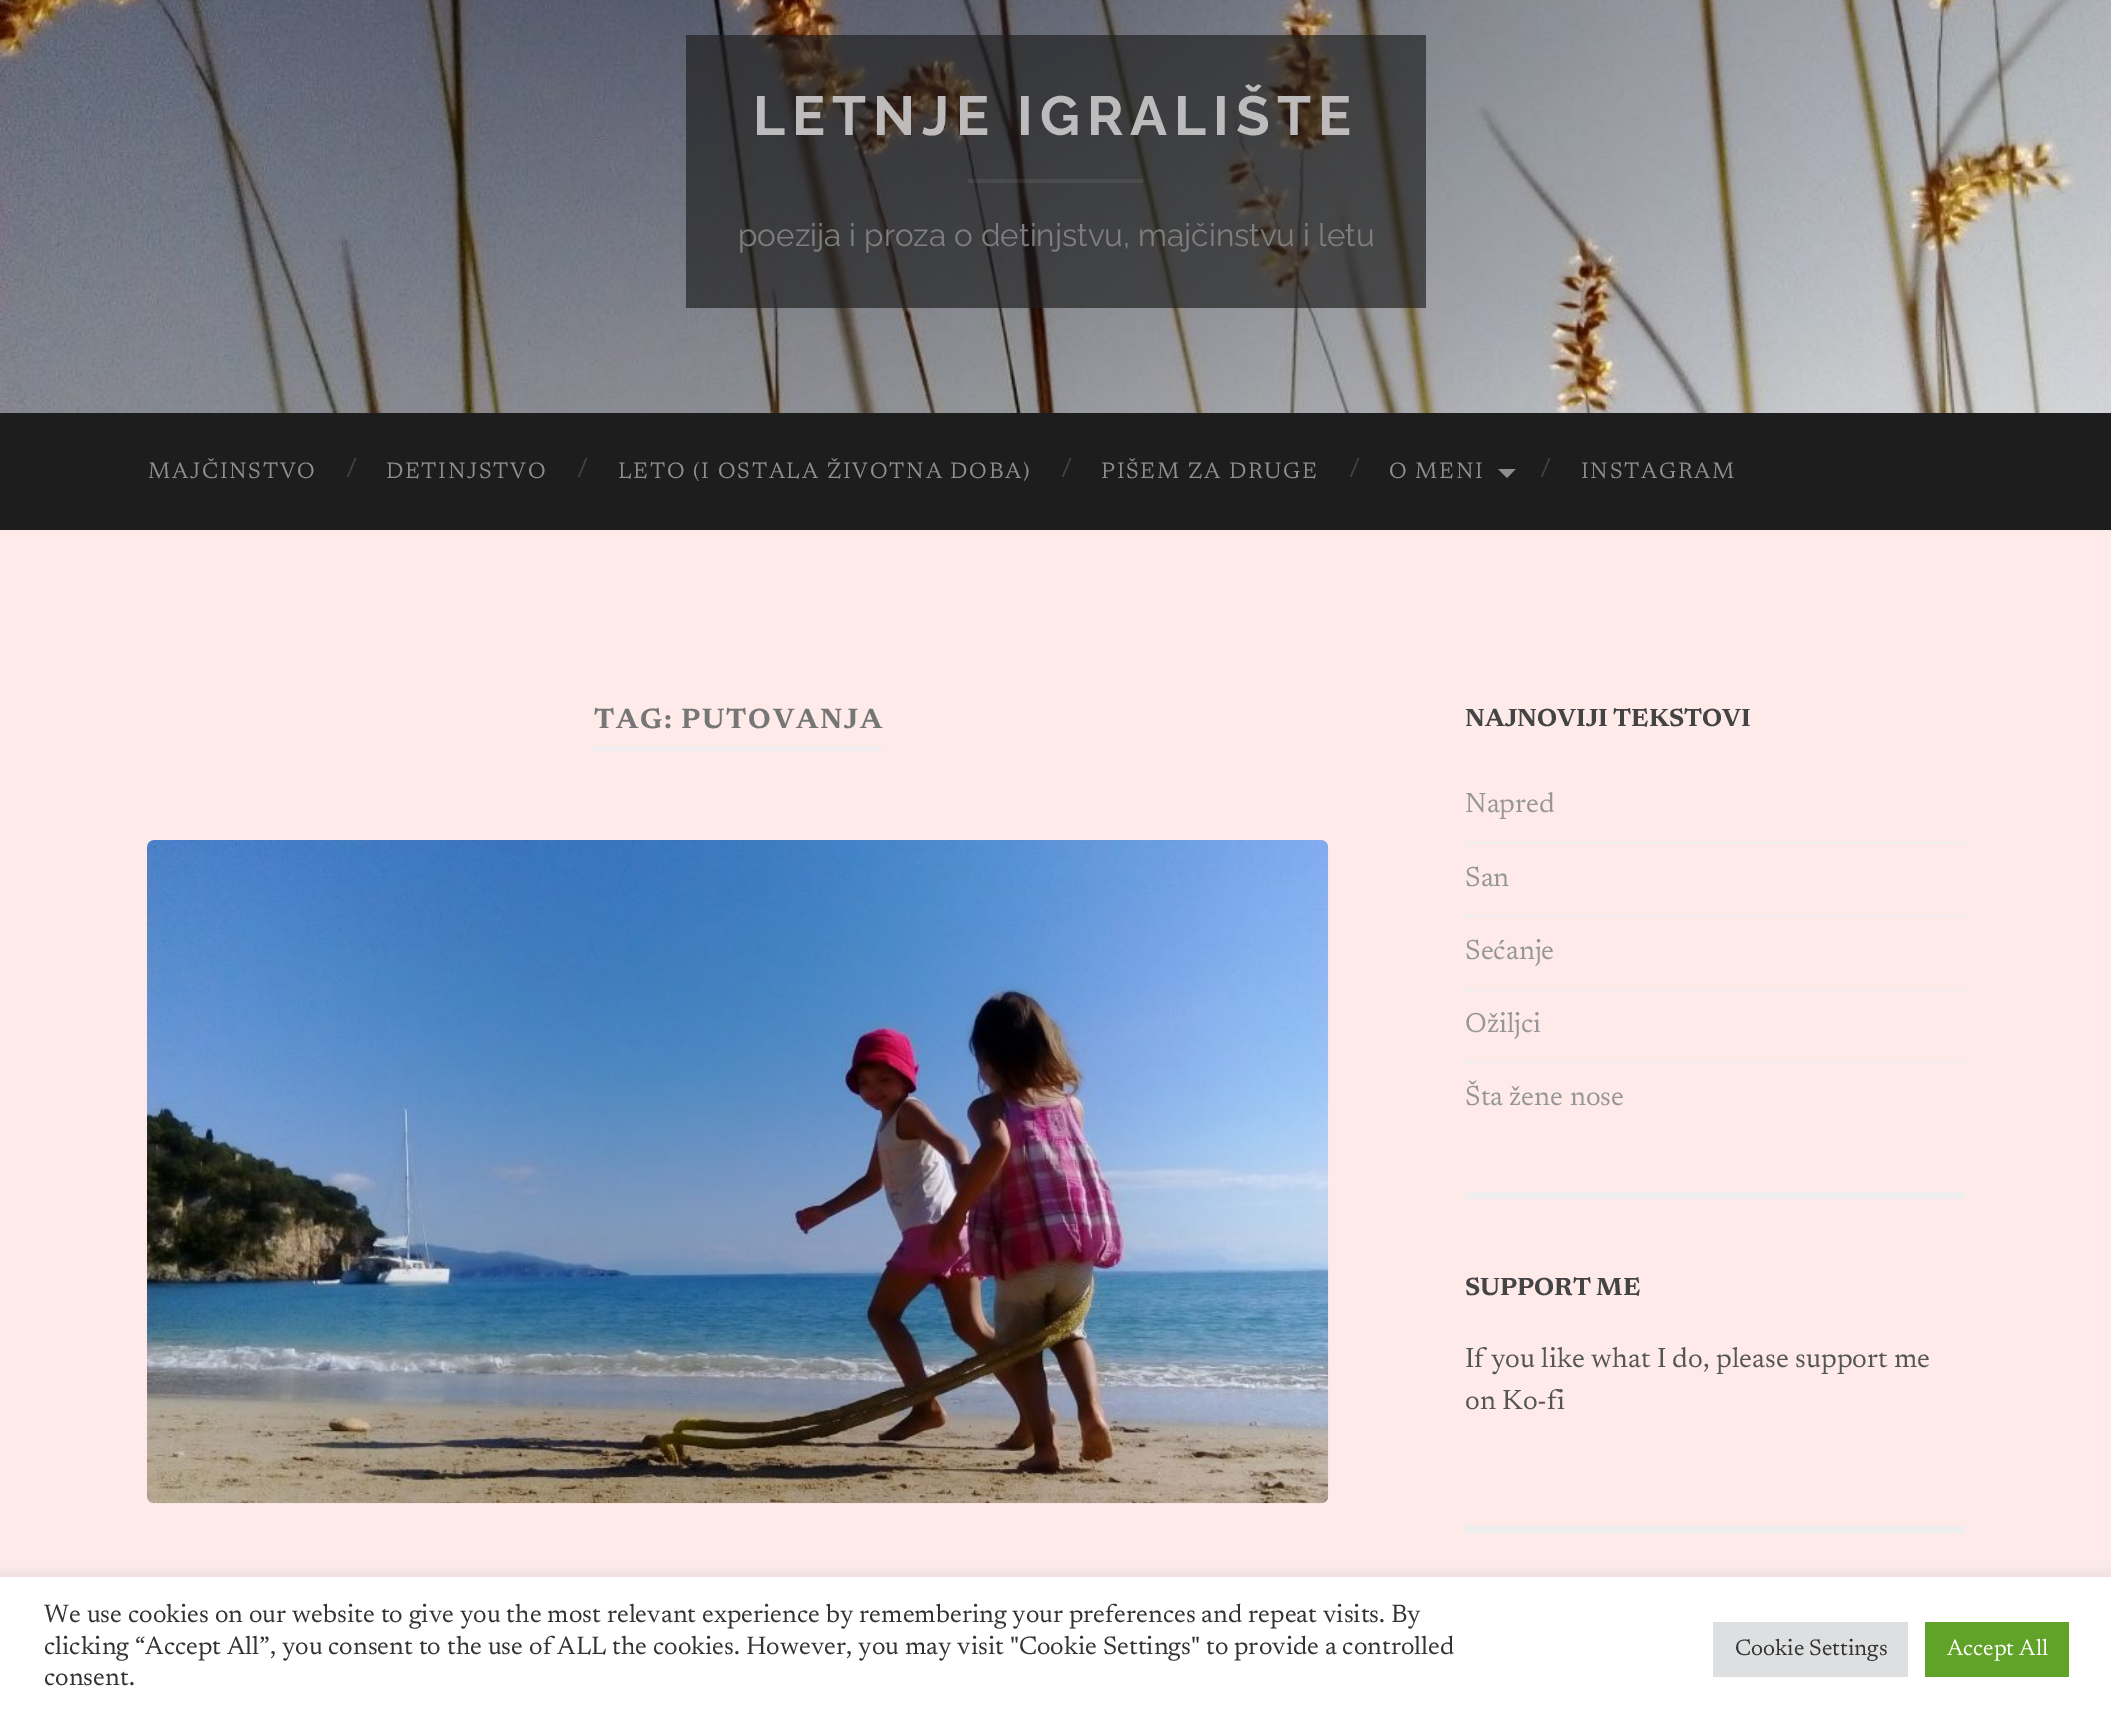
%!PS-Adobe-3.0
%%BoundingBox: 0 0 2111 1720
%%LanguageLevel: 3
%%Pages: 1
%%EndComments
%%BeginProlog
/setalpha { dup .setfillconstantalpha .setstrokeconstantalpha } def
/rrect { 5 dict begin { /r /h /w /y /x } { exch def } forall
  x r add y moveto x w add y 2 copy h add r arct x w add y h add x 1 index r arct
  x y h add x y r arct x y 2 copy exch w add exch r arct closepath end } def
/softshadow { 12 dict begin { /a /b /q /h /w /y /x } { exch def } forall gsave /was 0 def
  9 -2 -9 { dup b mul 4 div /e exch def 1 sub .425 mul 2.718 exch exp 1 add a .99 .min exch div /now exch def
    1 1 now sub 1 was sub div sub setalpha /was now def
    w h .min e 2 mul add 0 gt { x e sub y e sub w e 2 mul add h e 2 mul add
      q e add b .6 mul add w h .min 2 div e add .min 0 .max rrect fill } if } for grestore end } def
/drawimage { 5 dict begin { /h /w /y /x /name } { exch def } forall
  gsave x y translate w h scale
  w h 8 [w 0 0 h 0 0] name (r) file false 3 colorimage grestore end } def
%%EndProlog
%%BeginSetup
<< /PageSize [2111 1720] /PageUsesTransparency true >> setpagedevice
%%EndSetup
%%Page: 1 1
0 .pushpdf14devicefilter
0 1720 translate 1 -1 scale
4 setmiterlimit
1 0.918 0.918 setrgbcolor
0 0 2111 1720 rectfill
(images/1.raw) 0 0 2111 413 drawimage
0.66 setalpha
0.114 setgray
686 35 740 273 rectfill
0.07 setalpha
1 setgray
968 179 175 4 rectfill
1 setalpha
0.114 setgray
0 413 2111 117 rectfill
0.557 setgray
newpath 1498 469 moveto 1515.5 469 lineto 1507 478 lineto closepath fill
0.933 setgray
593 747 289 4 rectfill
(images/2.raw) 147 840 1182 664 drawimage
1465 1192 500 7 rectfill
1465 842 500 2 rectfill
1465 915 500 2 rectfill
1465 989 500 2 rectfill
1465 1061 500 2 rectfill
1465 1526 500 7 rectfill
0.675 0.671 0.671 setrgbcolor
0 1575 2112 144 0 9 0.3 softshadow
1 setgray
0 1577 2111 143 rectfill
0.871 0.875 0.878 setrgbcolor
1713 1622 195 55 rectfill
0.38 0.635 0.161 setrgbcolor
1925 1622 144 55 rectfill
/Raleway-Bold [55.1 0 0 -55.1 0 0] selectfont
0.741 0.733 0.733 setrgbcolor
753 135 moveto 7 0 (LETNJE IGRALIŠTE) ashow
/Raleway-Regular [31.5 0 0 -31.5 0 0] selectfont
0.494 setgray
738 246 moveto (poezija i proza o detinjstvu, majčinstvu i letu) show
/Newsreader-Regular [22.75 0 0 -22.75 0 0] selectfont
0.557 setgray
148 478 moveto 1.75 0 (MAJČINSTVO) ashow
/Newsreader-Regular [28 0 0 -28 0 0] selectfont
0.267 setgray
346 477 moveto (/) show
/Newsreader-Regular [22.75 0 0 -22.75 0 0] selectfont
0.557 setgray
386 478 moveto 1.75 0 (DETINJSTVO) ashow
/Newsreader-Regular [28 0 0 -28 0 0] selectfont
0.267 setgray
577 477 moveto (/) show
/Newsreader-Regular [22.75 0 0 -22.75 0 0] selectfont
0.557 setgray
618 478 moveto 1.75 0 (LETO \(I OSTALA ŽIVOTNA DOBA\)) ashow
/Newsreader-Regular [28 0 0 -28 0 0] selectfont
0.267 setgray
1061 477 moveto (/) show
/Newsreader-Regular [22.75 0 0 -22.75 0 0] selectfont
0.557 setgray
1101 478 moveto 1.75 0 (PIŠEM ZA DRUGE) ashow
/Newsreader-Regular [28 0 0 -28 0 0] selectfont
0.267 setgray
1349 477 moveto (/) show
/Newsreader-Regular [22.75 0 0 -22.75 0 0] selectfont
0.557 setgray
1389 478 moveto 1.75 0 (O MENI) ashow
/Newsreader-Regular [28 0 0 -28 0 0] selectfont
0.267 setgray
1540 477 moveto (/) show
/Newsreader-Regular [22.75 0 0 -22.75 0 0] selectfont
0.557 setgray
1581 478 moveto 1.75 0 (INSTAGRAM) ashow
/Newsreader-Bold [28.4 0 0 -28.4 0 0] selectfont
0.463 setgray
594 728 moveto 1.75 0 (TAG: PUTOVANJA) ashow
/Newsreader-Bold [25.25 0 0 -25.25 0 0] selectfont
0.267 setgray
1465 726 moveto (NAJNOVIJI TEKSTOVI) show
/Newsreader-Regular [28 0 0 -28 0 0] selectfont
0.588 setgray
1465 812 moveto (Napred) show
1465 886 moveto (San) show
1465 959 moveto (Sećanje) show
1465 1032 moveto (Ožiljci) show
1465 1105 moveto (Šta žene nose) show
/Newsreader-Bold [25.25 0 0 -25.25 0 0] selectfont
0.267 setgray
1465 1295 moveto (SUPPORT ME) show
/Newsreader-Regular [28 0 0 -28 0 0] selectfont
0.333 setgray
1465 1367 moveto (If you like what I do, please support me) show
1465 1409 moveto (on Ko-fi) show
/Newsreader-Regular [25.67 0 0 -25.67 0 0] selectfont
0.2 setgray
44 1622 moveto (We use cookies on our website to give you the most relevant experience by remembering your preferences and repeat visits. By) show
44 1654 moveto (clicking “Accept All”, you consent to the use of ALL the cookies. However, you may visit "Cookie Settings" to provide a controlled) show
44 1685 moveto (consent.) show
/Newsreader-Regular [22.75 0 0 -22.75 0 0] selectfont
1735 1655 moveto (Cookie Settings) show
1 setgray
1947 1655 moveto (Accept All) show
.poppdf14devicefilter showpage
%%EOF
